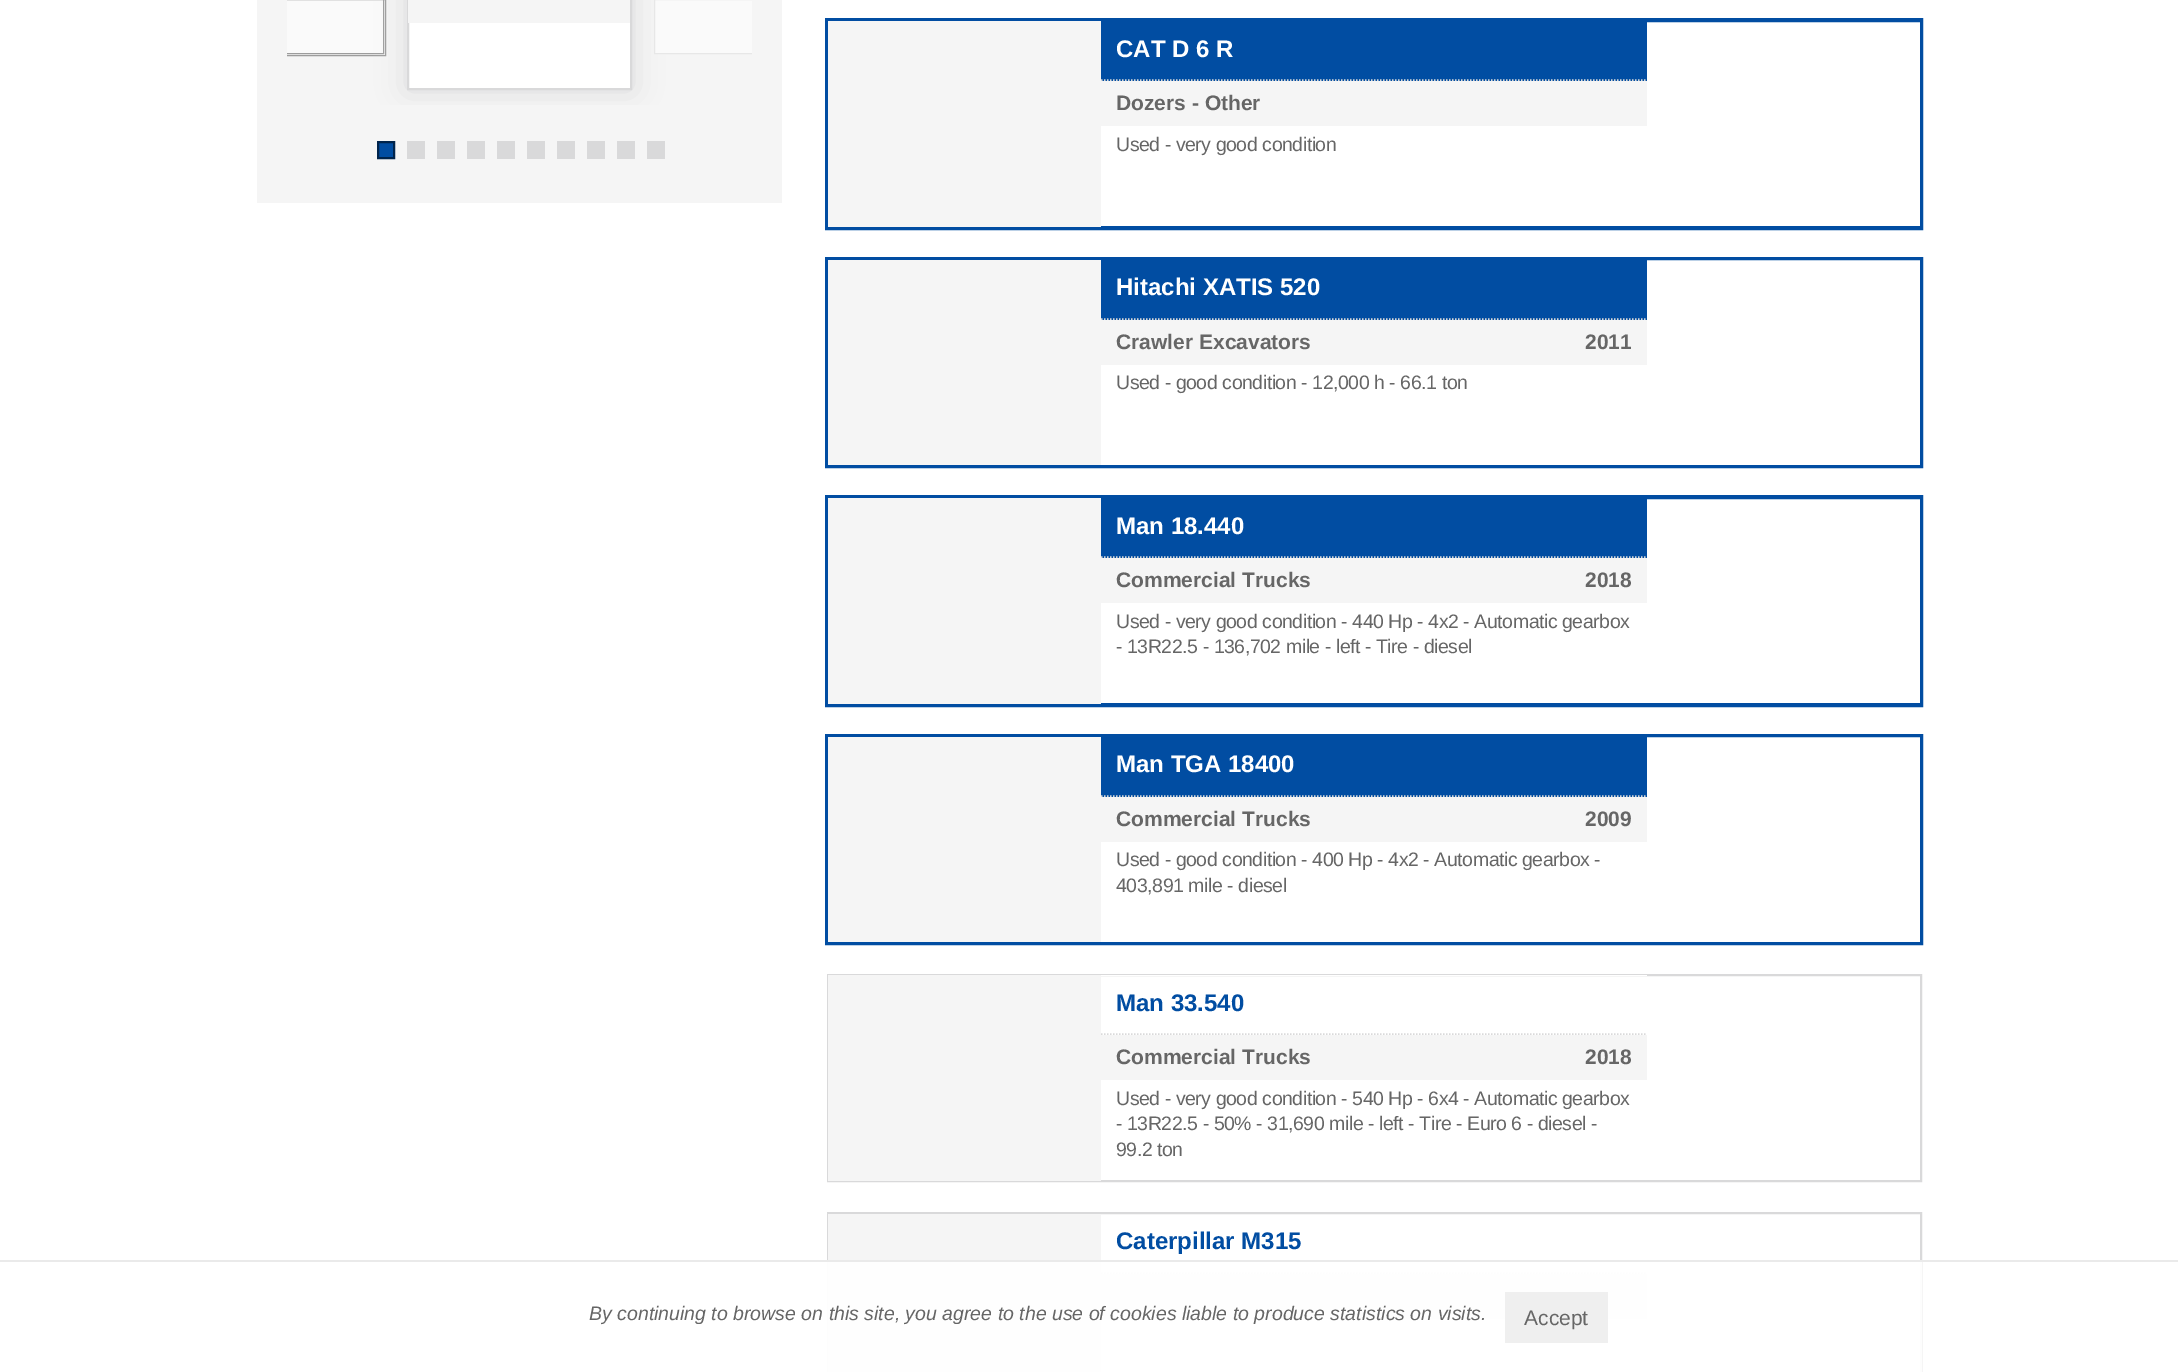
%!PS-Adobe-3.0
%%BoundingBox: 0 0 2178 1372
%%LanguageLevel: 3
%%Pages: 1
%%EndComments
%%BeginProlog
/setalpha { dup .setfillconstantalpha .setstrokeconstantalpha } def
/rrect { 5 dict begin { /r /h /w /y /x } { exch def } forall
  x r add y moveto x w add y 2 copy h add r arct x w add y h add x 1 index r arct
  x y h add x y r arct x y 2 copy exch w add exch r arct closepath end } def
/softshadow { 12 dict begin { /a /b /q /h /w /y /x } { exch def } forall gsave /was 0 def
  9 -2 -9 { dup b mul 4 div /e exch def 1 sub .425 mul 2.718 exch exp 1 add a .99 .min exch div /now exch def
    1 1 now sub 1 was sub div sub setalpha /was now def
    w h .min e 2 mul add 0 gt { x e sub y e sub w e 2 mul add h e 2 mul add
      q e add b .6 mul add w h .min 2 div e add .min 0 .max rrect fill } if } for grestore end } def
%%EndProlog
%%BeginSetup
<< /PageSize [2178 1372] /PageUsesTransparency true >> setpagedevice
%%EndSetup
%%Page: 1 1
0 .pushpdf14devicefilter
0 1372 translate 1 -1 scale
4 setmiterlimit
1 setgray
0 0 2178 1372 rectfill
0.961 setgray
257 0 525 203 rectfill
gsave
287 0 465 105 rectclip
0.612 setgray
203.5 -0.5 182 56 rectstroke
grestore
0.98 setgray
287 0 96 53 rectfill
gsave
287 0 465 105 rectclip
0.612 setgray
204.5 -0.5 179 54 rectstroke
grestore
gsave
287 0 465 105 rectclip
0.851 0.851 0.855 setrgbcolor
407 -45 225 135 0 15 1 softshadow
grestore
1 setgray
409 23 221 65 rectfill
0.851 0.851 0.855 setrgbcolor
2 setlinewidth
408 -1 223 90 rectstroke
0.961 setgray
408 0 222 23 rectfill
0.98 setgray
655 0 97 53 rectfill
0.004 0.302 0.635 setrgbcolor
826 19 1096 210 rectstroke
828 21 1093 206 rectstroke
0.961 setgray
828 21 273 206 rectfill
gsave
287 0 465 105 rectclip
0.906 setgray
1 setlinewidth
654.5 -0.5 179 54 rectstroke
grestore
0.004 0.302 0.635 setrgbcolor
newpath 378 142 moveto 394 142 lineto 394 158 lineto 378 158 lineto closepath gsave fill grestore
0 0.141 0.298 setrgbcolor
stroke
0.851 0.851 0.855 setrgbcolor
407 141 18 18 rectfill
437 141 18 18 rectfill
467 141 18 18 rectfill
497 141 18 18 rectfill
527 141 18 18 rectfill
557 141 18 18 rectfill
587 141 18 18 rectfill
617 141 18 18 rectfill
647 141 18 18 rectfill
0.004 0.302 0.635 setrgbcolor
1101 22 546 59 rectfill
0.851 0.851 0.855 setrgbcolor
1.5 setlinewidth
[1.5 1.5] 0 setdash
newpath 1101 80 moveto 1647 80 lineto stroke
0.961 setgray
1101 81 546 45 rectfill
0.004 0.302 0.635 setrgbcolor
2 setlinewidth
[] 0 setdash
826 258 1096 209 rectstroke
828 259 1093 207 rectstroke
0.961 setgray
828 260 273 205 rectfill
0.004 0.302 0.635 setrgbcolor
1101 260 546 60 rectfill
0.851 0.851 0.855 setrgbcolor
1.5 setlinewidth
[1.5 1.5] 0 setdash
newpath 1101 319 moveto 1647 319 lineto stroke
0.961 setgray
1101 320 546 45 rectfill
0.004 0.302 0.635 setrgbcolor
2 setlinewidth
[] 0 setdash
826 496 1096 210 rectstroke
828 498 1093 206 rectstroke
0.961 setgray
828 498 273 206 rectfill
0.004 0.302 0.635 setrgbcolor
1101 499 546 59 rectfill
0.851 0.851 0.855 setrgbcolor
1.5 setlinewidth
[1.5 1.5] 0 setdash
newpath 1101 557 moveto 1647 557 lineto stroke
0.961 setgray
1101 558 546 45 rectfill
0.004 0.302 0.635 setrgbcolor
2 setlinewidth
[] 0 setdash
826 735 1096 209 rectstroke
828 736 1093 207 rectstroke
0.961 setgray
828 737 273 205 rectfill
0.004 0.302 0.635 setrgbcolor
1101 737 546 60 rectfill
0.851 0.851 0.855 setrgbcolor
1.5 setlinewidth
[1.5 1.5] 0 setdash
newpath 1101 796 moveto 1647 796 lineto stroke
0.961 setgray
1101 797 546 45 rectfill
0.851 0.851 0.855 setrgbcolor
2 setlinewidth
[] 0 setdash
828 975 1093 206 rectstroke
0.961 setgray
828 975 273 206 rectfill
1 setgray
1101 975 546 1 rectfill
0.851 0.851 0.855 setrgbcolor
1.5 setlinewidth
[1.5 1.5] 0 setdash
newpath 1101 1034 moveto 1647 1034 lineto stroke
0.961 setgray
1101 1035 546 45 rectfill
0.851 0.851 0.855 setrgbcolor
2 setlinewidth
[] 0 setdash
828 1213 1093 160 rectstroke
0.961 setgray
828 1214 273 158 rectfill
0.851 0.851 0.855 setrgbcolor
1.5 setlinewidth
[1.5 1.5] 0 setdash
newpath 1101 1273 moveto 1647 1273 lineto stroke
0.961 setgray
1101 1274 546 45 rectfill
0.95 setalpha
1 setgray
827 1262 1095 110 rectfill
1 setalpha
0.918 setgray
0 1260 2178 2 rectfill
0.937 setgray
1505 1292 103 51 rectfill
/LiberationSans-Bold [24 0 0 -24 0 0] selectfont
1 setgray
1116 57 moveto (CAT D 6 R) show
/LiberationSans-Bold [21 0 0 -21 0 0] selectfont
0.4 setgray
1116 110 moveto (Dozers - Other) show
/LiberationSans-Regular [19.5 0 0 -19.5 0 0] selectfont
1116 151 moveto -0.45 0 (Used - very good condition) ashow
/LiberationSans-Bold [24 0 0 -24 0 0] selectfont
1 setgray
1116 295 moveto (Hitachi XATIS 520) show
/LiberationSans-Bold [21 0 0 -21 0 0] selectfont
0.4 setgray
1116 349 moveto (Crawler Excavators) show
1585 349 moveto (2011) show
/LiberationSans-Regular [19.5 0 0 -19.5 0 0] selectfont
1116 389 moveto -0.45 0 (Used - good condition - 12,000 h - 66.1 ton) ashow
/LiberationSans-Bold [24 0 0 -24 0 0] selectfont
1 setgray
1116 534 moveto (Man 18.440) show
/LiberationSans-Bold [21 0 0 -21 0 0] selectfont
0.4 setgray
1116 587 moveto (Commercial Trucks) show
1585 587 moveto (2018) show
/LiberationSans-Regular [19.5 0 0 -19.5 0 0] selectfont
1116 628 moveto -0.45 0 (Used - very good condition - 440 Hp - 4x2 - Automatic gearbox) ashow
1116 653 moveto -0.45 0 (- 13R22.5 - 136,702 mile - left - Tire - diesel) ashow
/LiberationSans-Bold [24 0 0 -24 0 0] selectfont
1 setgray
1116 772 moveto (Man TGA 18400) show
/LiberationSans-Bold [21 0 0 -21 0 0] selectfont
0.4 setgray
1116 826 moveto (Commercial Trucks) show
1585 826 moveto (2009) show
/LiberationSans-Regular [19.5 0 0 -19.5 0 0] selectfont
1116 866 moveto -0.45 0 (Used - good condition - 400 Hp - 4x2 - Automatic gearbox -) ashow
1116 892 moveto -0.45 0 (403,891 mile - diesel) ashow
/LiberationSans-Bold [24 0 0 -24 0 0] selectfont
0.004 0.302 0.635 setrgbcolor
1116 1011 moveto (Man 33.540) show
/LiberationSans-Bold [21 0 0 -21 0 0] selectfont
0.4 setgray
1116 1064 moveto (Commercial Trucks) show
1585 1064 moveto (2018) show
/LiberationSans-Regular [19.5 0 0 -19.5 0 0] selectfont
1116 1105 moveto -0.45 0 (Used - very good condition - 540 Hp - 6x4 - Automatic gearbox) ashow
1116 1130 moveto -0.45 0 (- 13R22.5 - 50% - 31,690 mile - left - Tire - Euro 6 - diesel -) ashow
1116 1156 moveto -0.45 0 (99.2 ton) ashow
/LiberationSans-Bold [24 0 0 -24 0 0] selectfont
0.004 0.302 0.635 setrgbcolor
1116 1249 moveto (Caterpillar M315) show
/LiberationSans-Italic [19.5 0 0 -19.5 0 0] selectfont
0.4 setgray
589 1320 moveto (By continuing to browse on this site, you agree to the use of cookies liable to produce statistics on visits.) show
/LiberationSans-Regular [21 0 0 -21 0 0] selectfont
1524 1325 moveto (Accept) show
.poppdf14devicefilter showpage
%%EOF
